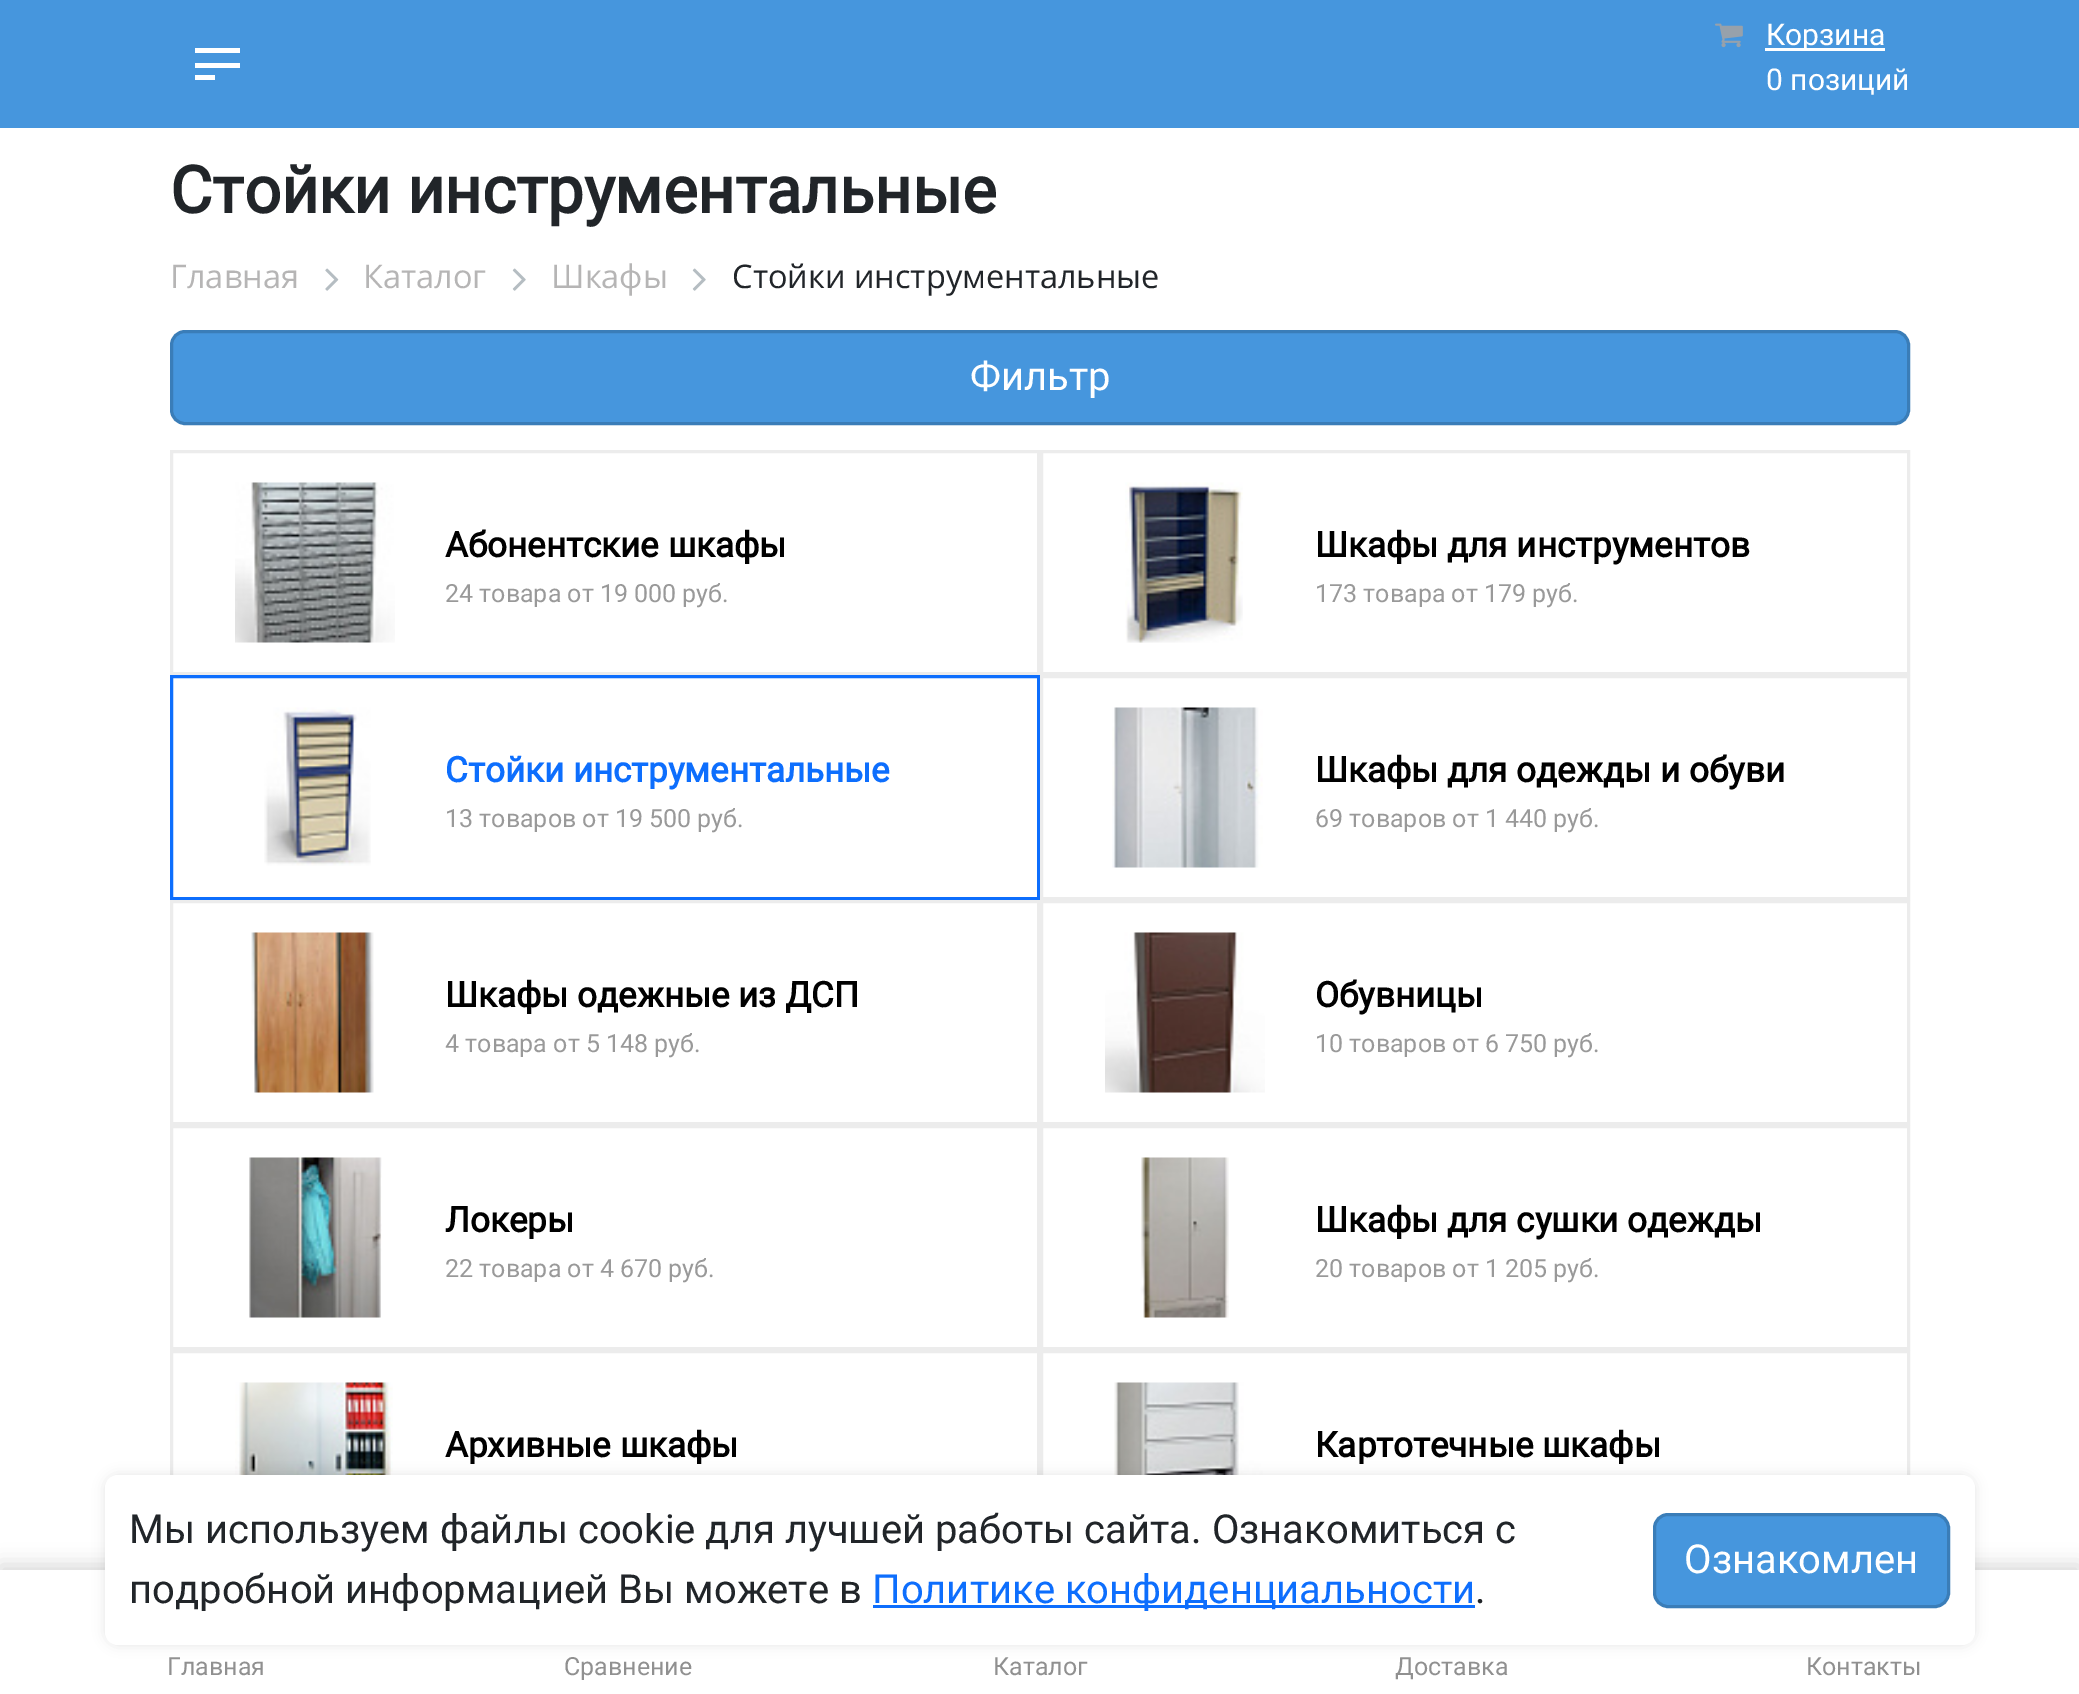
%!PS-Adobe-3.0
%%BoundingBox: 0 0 2079 1694
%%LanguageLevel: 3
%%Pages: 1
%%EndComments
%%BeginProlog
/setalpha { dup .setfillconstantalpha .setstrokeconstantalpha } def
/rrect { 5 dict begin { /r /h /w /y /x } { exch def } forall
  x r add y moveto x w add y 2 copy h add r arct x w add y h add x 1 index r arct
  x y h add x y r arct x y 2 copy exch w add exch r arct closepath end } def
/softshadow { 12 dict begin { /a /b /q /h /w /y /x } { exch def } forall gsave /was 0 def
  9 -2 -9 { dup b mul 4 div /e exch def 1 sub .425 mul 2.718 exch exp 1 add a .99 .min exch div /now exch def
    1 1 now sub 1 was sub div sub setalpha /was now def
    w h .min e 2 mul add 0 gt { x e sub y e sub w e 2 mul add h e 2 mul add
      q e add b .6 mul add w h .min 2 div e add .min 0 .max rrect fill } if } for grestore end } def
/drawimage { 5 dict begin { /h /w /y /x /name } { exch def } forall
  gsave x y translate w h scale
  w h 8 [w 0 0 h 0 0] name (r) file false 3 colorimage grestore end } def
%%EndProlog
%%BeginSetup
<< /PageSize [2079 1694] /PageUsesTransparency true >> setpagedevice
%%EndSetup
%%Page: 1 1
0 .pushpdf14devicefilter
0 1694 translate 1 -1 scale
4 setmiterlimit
1 setgray
0 0 2079 1694 rectfill
0.275 0.588 0.867 setrgbcolor
0 0 2079 128 rectfill
1 setgray
195 48 45 5 rectfill
195 63 45 5 rectfill
195 75 20 5 rectfill
(images/1.raw) 1715 23 28 25 drawimage
1765 48 120 3 rectfill
(images/2.raw) 325 268 14 23 drawimage
(images/3.raw) 512 268 14 23 drawimage
(images/3.raw) 692 268 14 23 drawimage
0.275 0.588 0.867 setrgbcolor
171.5 331.5 1737 92 13.5 rrect gsave fill grestore
0.227 0.49 0.722 setrgbcolor
3 setlinewidth
stroke
0.925 setgray
171.5 451.5 867 222 rectstroke
(images/4.raw) 235 482 160 161 drawimage
1041.5 451.5 867 222 rectstroke
(images/5.raw) 1125 482 118 161 drawimage
0.051 0.431 0.992 setrgbcolor
171.5 676.5 867 222 rectstroke
(images/6.raw) 264 707 107 159 drawimage
0.925 setgray
1041.5 676.5 867 222 rectstroke
(images/7.raw) 1112 707 151 161 drawimage
171.5 901.5 867 222 rectstroke
(images/8.raw) 251 932 123 161 drawimage
1041.5 901.5 867 222 rectstroke
(images/9.raw) 1105 932 160 161 drawimage
171.5 1126.5 867 222 rectstroke
(images/10.raw) 249 1157 133 161 drawimage
1041.5 1126.5 867 222 rectstroke
(images/11.raw) 1140 1157 89 161 drawimage
171.5 1351.5 867 222 rectstroke
(images/12.raw) 235 1382 158 93 drawimage
1041.5 1351.5 867 222 rectstroke
(images/13.raw) 1114 1382 149 93 drawimage
0 setgray
0 1565 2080 125 0 10 0.15 softshadow
1 setgray
0 1570 2079 124 rectfill
0 setgray
105 1475 1870 170 13 6 0.1 softshadow
1 setgray
105 1475 1870 170 13 rrect fill
0.051 0.431 0.992 setrgbcolor
873 1605 602 3 rectfill
0.275 0.588 0.867 setrgbcolor
1654.5 1514.5 294 92 13.5 rrect gsave fill grestore
0.227 0.49 0.722 setrgbcolor
stroke
/Roboto-Regular [30 0 0 -30 0 0] selectfont
1 setgray
1766 45 moveto (Корзина) show
1766 90 moveto (0 позиций) show
/Roboto-Bold [65 0 0 -65 0 0] selectfont
0.129 0.145 0.161 setrgbcolor
170 213 moveto (Стойки инструментальные) show
/OpenSans-Regular [32.5 0 0 -32.5 0 0] selectfont
0.714 0.71 0.71 setrgbcolor
170 288 moveto (Главная) show
363 288 moveto (Каталог) show
551 288 moveto (Шкафы) show
0.129 0.145 0.161 setrgbcolor
732 288 moveto (Стойки инструментальные) show
/Roboto-Regular [40 0 0 -40 0 0] selectfont
1 setgray
970 390 moveto (Фильтр) show
/Roboto-Bold [35 0 0 -35 0 0] selectfont
0 setgray
445 557 moveto (Абонентские шкафы) show
/Roboto-Regular [25 0 0 -25 0 0] selectfont
0.6 setgray
445 602 moveto (24 товара от 19 000 руб.) show
/Roboto-Bold [35 0 0 -35 0 0] selectfont
0 setgray
1315 557 moveto (Шкафы для инструментов) show
/Roboto-Regular [25 0 0 -25 0 0] selectfont
0.6 setgray
1315 602 moveto (173 товара от 179 руб.) show
/Roboto-Bold [35 0 0 -35 0 0] selectfont
0.051 0.431 0.992 setrgbcolor
445 782 moveto (Стойки инструментальные) show
/Roboto-Regular [25 0 0 -25 0 0] selectfont
0.6 setgray
445 827 moveto (13 товаров от 19 500 руб.) show
/Roboto-Bold [35 0 0 -35 0 0] selectfont
0 setgray
1315 782 moveto (Шкафы для одежды и обуви) show
/Roboto-Regular [25 0 0 -25 0 0] selectfont
0.6 setgray
1315 827 moveto (69 товаров от 1 440 руб.) show
/Roboto-Bold [35 0 0 -35 0 0] selectfont
0 setgray
445 1007 moveto (Шкафы одежные из ДСП) show
/Roboto-Regular [25 0 0 -25 0 0] selectfont
0.6 setgray
445 1052 moveto (4 товара от 5 148 руб.) show
/Roboto-Bold [35 0 0 -35 0 0] selectfont
0 setgray
1315 1007 moveto (Обувницы) show
/Roboto-Regular [25 0 0 -25 0 0] selectfont
0.6 setgray
1315 1052 moveto (10 товаров от 6 750 руб.) show
/Roboto-Bold [35 0 0 -35 0 0] selectfont
0 setgray
445 1232 moveto (Локеры) show
/Roboto-Regular [25 0 0 -25 0 0] selectfont
0.6 setgray
445 1277 moveto (22 товара от 4 670 руб.) show
/Roboto-Bold [35 0 0 -35 0 0] selectfont
0 setgray
1315 1232 moveto (Шкафы для сушки одежды) show
/Roboto-Regular [25 0 0 -25 0 0] selectfont
0.6 setgray
1315 1277 moveto (20 товаров от 1 205 руб.) show
/Roboto-Bold [35 0 0 -35 0 0] selectfont
0 setgray
445 1457 moveto (Архивные шкафы) show
1315 1457 moveto (Картотечные шкафы) show
/Roboto-Regular [40 0 0 -40 0 0] selectfont
0.129 0.145 0.161 setrgbcolor
129 1543 moveto (Мы используем файлы cookie для лучшей работы сайта. Ознакомиться с) show
129 1603 moveto (подробной информацией Вы можете в) show
0.051 0.431 0.992 setrgbcolor
872 1603 moveto (Политике конфиденциальности) show
0.129 0.145 0.161 setrgbcolor
1475 1603 moveto (.) show
1 setgray
1684 1573 moveto (Ознакомлен) show
/Roboto-Regular [25 0 0 -25 0 0] selectfont
0.565 setgray
167 1675 moveto (Главная) show
564 1675 moveto (Сравнение) show
993 1675 moveto (Каталог) show
1395 1675 moveto (Доставка) show
1806 1675 moveto (Контакты) show
.poppdf14devicefilter showpage
%%EOF
